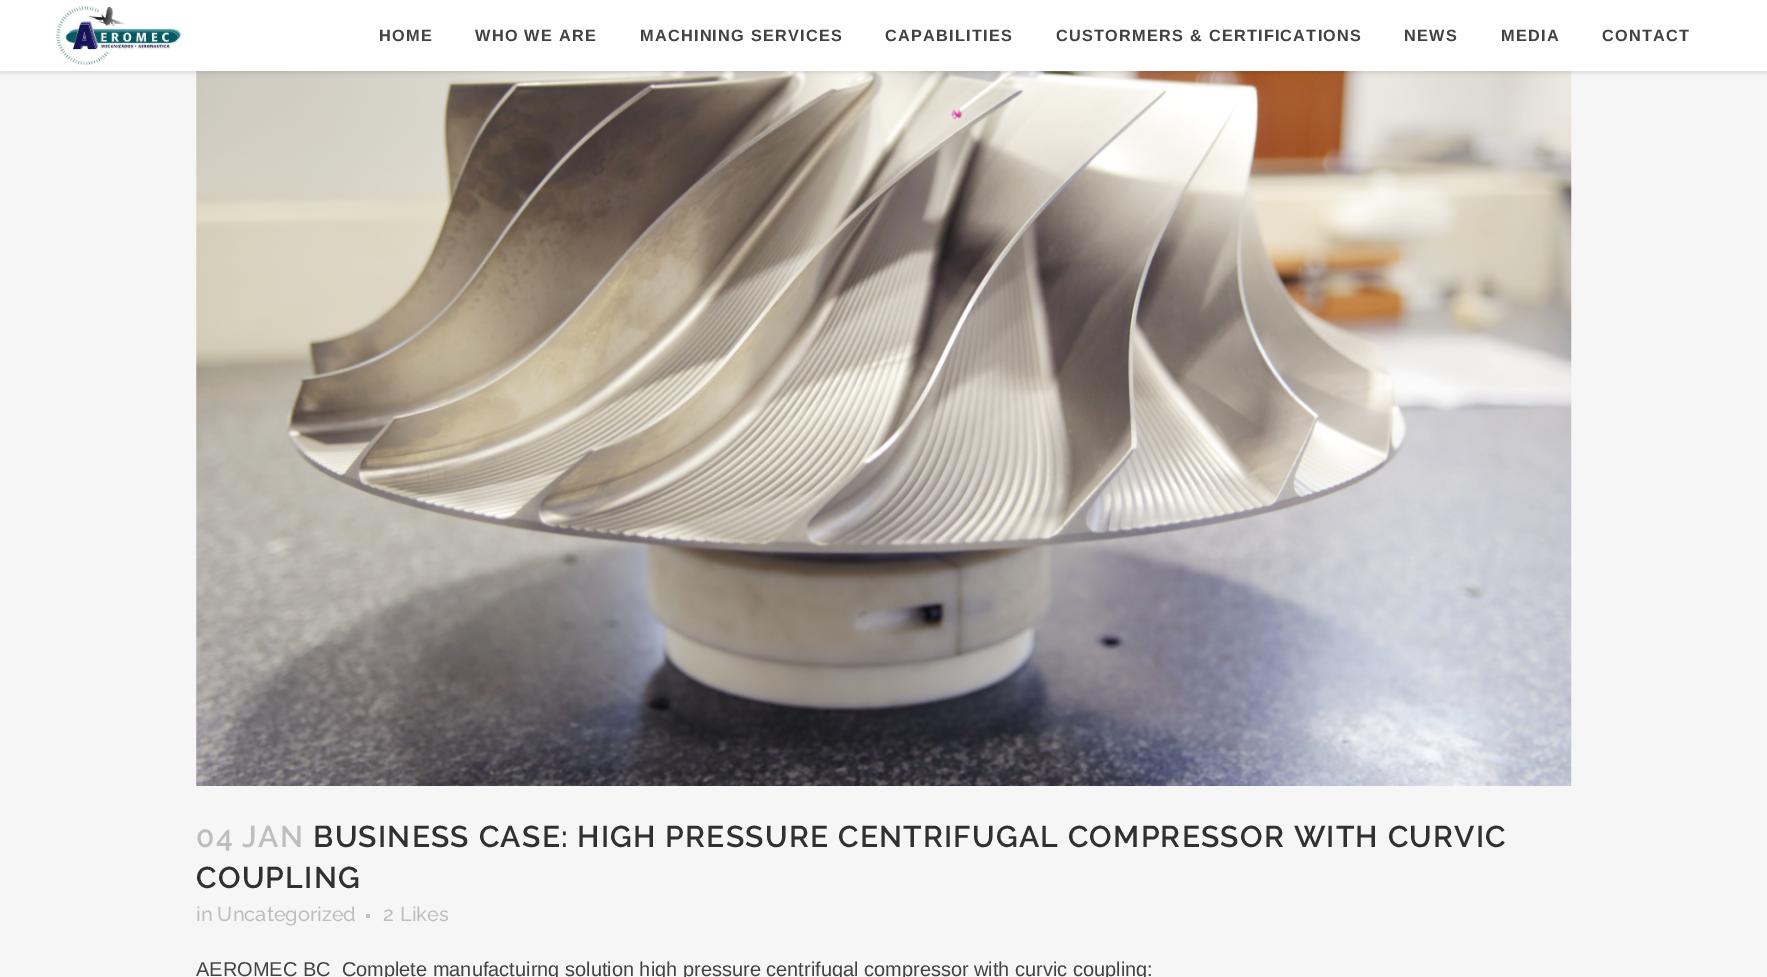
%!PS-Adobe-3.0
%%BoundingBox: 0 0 1767 977
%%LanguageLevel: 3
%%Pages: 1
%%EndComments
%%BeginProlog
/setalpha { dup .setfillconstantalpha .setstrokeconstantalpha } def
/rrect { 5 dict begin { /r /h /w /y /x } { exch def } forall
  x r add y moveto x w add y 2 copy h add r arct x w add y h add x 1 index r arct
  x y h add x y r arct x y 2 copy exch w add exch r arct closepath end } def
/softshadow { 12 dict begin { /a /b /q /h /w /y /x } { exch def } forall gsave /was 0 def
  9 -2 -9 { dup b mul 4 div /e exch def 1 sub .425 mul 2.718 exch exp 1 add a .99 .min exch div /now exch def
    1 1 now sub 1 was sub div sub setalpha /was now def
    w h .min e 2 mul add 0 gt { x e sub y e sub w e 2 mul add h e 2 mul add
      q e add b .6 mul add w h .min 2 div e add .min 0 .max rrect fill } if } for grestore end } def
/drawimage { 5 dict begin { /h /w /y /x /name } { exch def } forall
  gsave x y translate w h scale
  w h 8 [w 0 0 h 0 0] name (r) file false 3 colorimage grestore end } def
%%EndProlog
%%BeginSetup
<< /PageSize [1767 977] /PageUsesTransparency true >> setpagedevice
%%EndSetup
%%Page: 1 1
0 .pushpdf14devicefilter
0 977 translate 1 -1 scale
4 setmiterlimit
0.965 setgray
0 0 1767 977 rectfill
(images/2.raw) 196 71 1376 715 drawimage
0 setgray
0 1 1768 72 0 2 0.11 softshadow
1 setgray
0 0 1767 71 rectfill
(images/1.raw) 56 6 126 59 drawimage
0.745 setgray
366 914 4 4 rectfill
/LiberationSans-Bold [16.25 0 0 -16.25 0 0] selectfont
0.259 setgray
379 41 moveto 1.25 0 (HOME) ashow
475 41 moveto 1.25 0 (WHO WE ARE) ashow
640 41 moveto 1.25 0 (MACHINING SERVICES) ashow
885 41 moveto 1.25 0 (CAPABILITIES) ashow
1056 41 moveto 1.25 0 (CUSTORMERS & CERTIFICATIONS) ashow
1404 41 moveto 1.25 0 (NEWS) ashow
1501 41 moveto 1.25 0 (MEDIA) ashow
1602 41 moveto 1.25 0 (CONTACT) ashow
/Raleway-SemiBold [30 0 0 -30 0 0] selectfont
0.745 setgray
196 847 moveto 1.25 0 (04 JAN) ashow
0.188 setgray
313 847 moveto 1.25 0 (BUSINESS CASE: HIGH PRESSURE CENTRIFUGAL COMPRESSOR WITH CURVIC) ashow
196 888 moveto 1.25 0 (COUPLING) ashow
/Raleway-Medium [20 0 0 -20 0 0] selectfont
0.745 setgray
196 921 moveto (in Uncategorized) show
383 921 moveto (2) show
400 921 moveto (Likes) show
/LiberationSans-Regular [20 0 0 -20 0 0] selectfont
0.259 setgray
196 976 moveto (AEROMEC BC_Complete manufactuirng solution high pressure centrifugal compressor with curvic coupling:) show
.poppdf14devicefilter showpage
%%EOF
